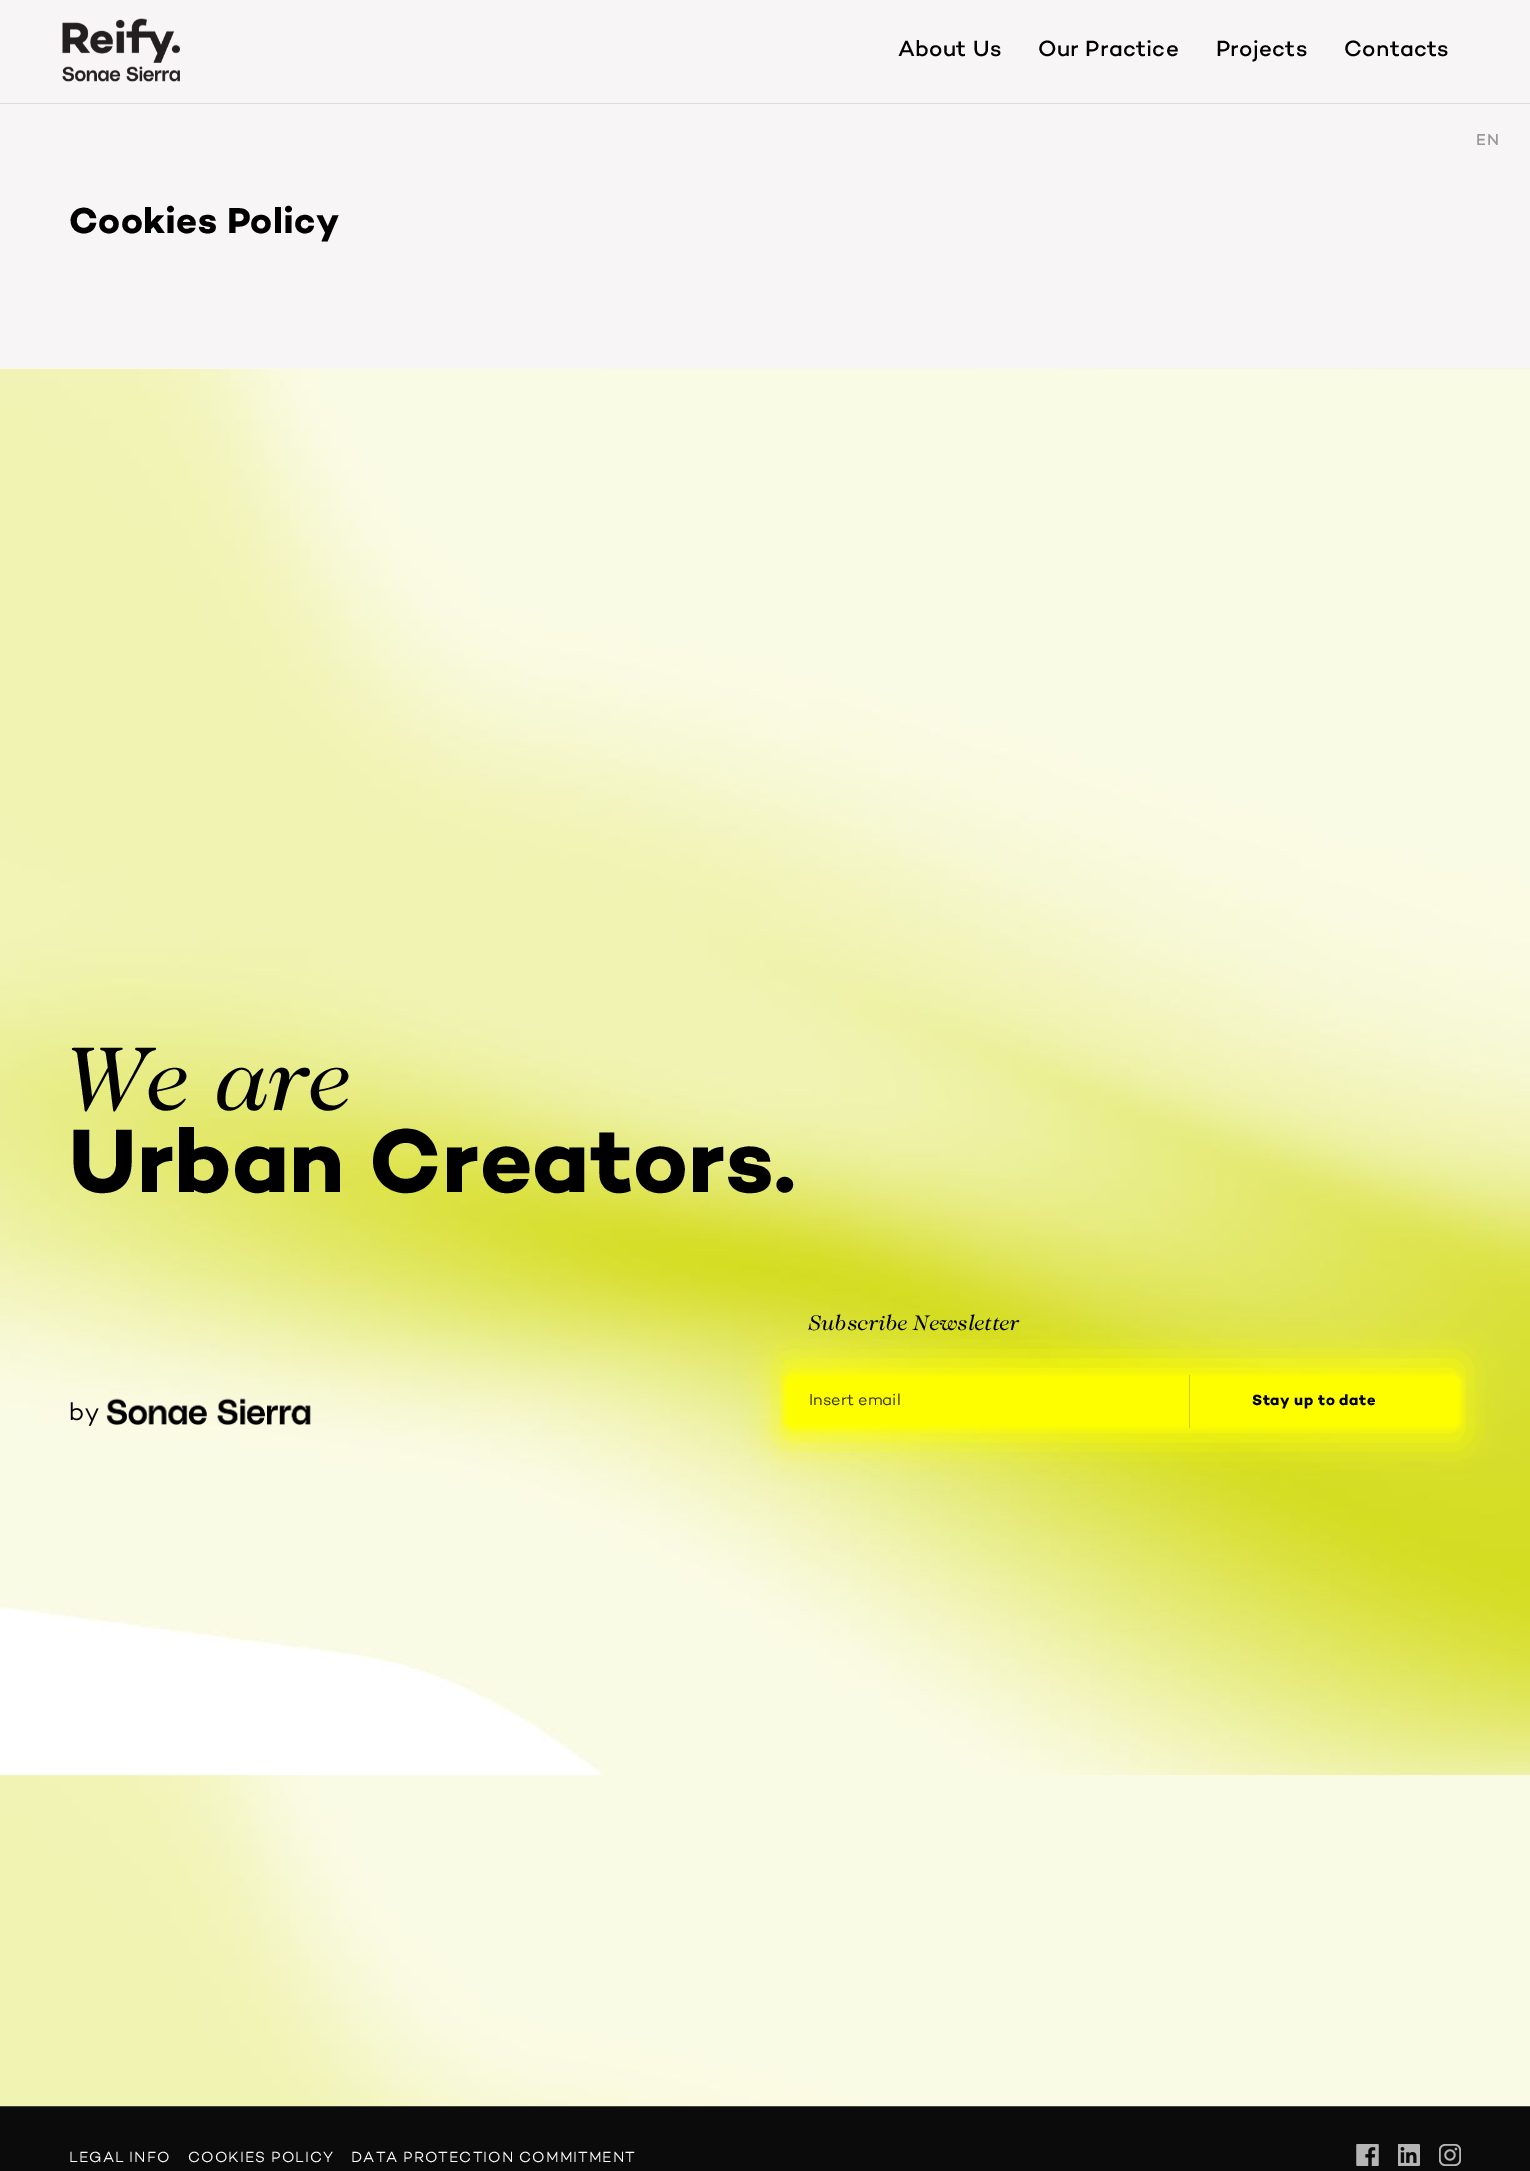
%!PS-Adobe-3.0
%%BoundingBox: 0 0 1530 2171
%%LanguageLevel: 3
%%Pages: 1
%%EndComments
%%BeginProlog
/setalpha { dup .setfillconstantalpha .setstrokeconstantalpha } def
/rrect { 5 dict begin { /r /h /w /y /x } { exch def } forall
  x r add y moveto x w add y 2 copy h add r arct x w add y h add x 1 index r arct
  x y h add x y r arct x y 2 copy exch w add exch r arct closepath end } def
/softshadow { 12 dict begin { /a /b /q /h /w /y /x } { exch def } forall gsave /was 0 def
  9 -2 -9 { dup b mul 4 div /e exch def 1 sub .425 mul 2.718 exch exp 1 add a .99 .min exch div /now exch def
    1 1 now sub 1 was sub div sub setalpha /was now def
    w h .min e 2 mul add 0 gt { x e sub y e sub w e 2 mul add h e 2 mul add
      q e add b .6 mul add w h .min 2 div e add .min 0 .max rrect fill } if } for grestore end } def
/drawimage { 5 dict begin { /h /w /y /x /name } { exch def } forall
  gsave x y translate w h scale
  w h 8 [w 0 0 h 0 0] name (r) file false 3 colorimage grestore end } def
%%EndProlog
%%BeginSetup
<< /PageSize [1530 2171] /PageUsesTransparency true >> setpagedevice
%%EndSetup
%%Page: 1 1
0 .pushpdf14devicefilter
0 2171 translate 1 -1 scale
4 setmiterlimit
0.969 0.961 0.961 setrgbcolor
0 0 1530 2171 rectfill
0.871 0.867 0.867 setrgbcolor
0 103 1530 1 rectfill
(images/1.raw) 62 18 118 64 drawimage
0.043 setgray
0 2106 1530 65 rectfill
(images/2.raw) 0 368 1530 1739 drawimage
1 1 0 setrgbcolor
784 1363 677 75 0 19 1 softshadow
784 1375 677 53 6 2.5 1 softshadow
0.2 setalpha
0 setgray
1189 1375 1 53 rectfill
1 setalpha
(images/3.raw) 70 1402 29 24 drawimage
(images/4.raw) 106 1398 205 27 drawimage
(images/5.raw) 1356 2144 23 22 drawimage
(images/6.raw) 1398 2144 22 22 drawimage
(images/7.raw) 1439 2144 22 22 drawimage
/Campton-Medium [22.5 0 0 -22.5 0 0] selectfont
898 56 moveto 0.25 0 (About Us) ashow
1038 56 moveto 0.25 0 (Our Practice) ashow
1216 56 moveto 0.25 0 (Projects) ashow
1344 56 moveto 0.25 0 (Contacts) ashow
/Campton-Medium [16 0 0 -16 0 0] selectfont
0.6 setgray
1476 145 moveto 1 0 (EN) ashow
/Campton-Bold [36.75 0 0 -36.75 0 0] selectfont
0 setgray
69 233 moveto 0.25 0 (Cookies Policy) ashow
/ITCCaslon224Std-Italic [91.75 0 0 -91.75 0 0] selectfont
69 1110 moveto 0.25 0 (We are) ashow
/Campton-Bold [91.75 0 0 -91.75 0 0] selectfont
69 1192 moveto 0.25 0 (Urban Creators.) ashow
/ITCCaslon224Std-Italic [21.5 0 0 -21.5 0 0] selectfont
809 1330 moveto 0.25 0 (Subscribe Newsletter) ashow
/Campton-Regular [16.25 0 0 -16.25 0 0] selectfont
0.2 0.2 0 setrgbcolor
809 1405 moveto (Insert email) show
/Campton-Bold [15 0 0 -15 0 0] selectfont
0 setgray
1252 1405 moveto 0.5 0 (Stay up to date) ashow
/Campton-Regular [15 0 0 -15 0 0] selectfont
1 setgray
69 2162 moveto 1 0 (LEGAL INFO) ashow
188 2162 moveto 1 0 (COOKIES POLICY) ashow
351 2162 moveto 1 0 (DATA PROTECTION COMMITMENT) ashow
.poppdf14devicefilter showpage
%%EOF
